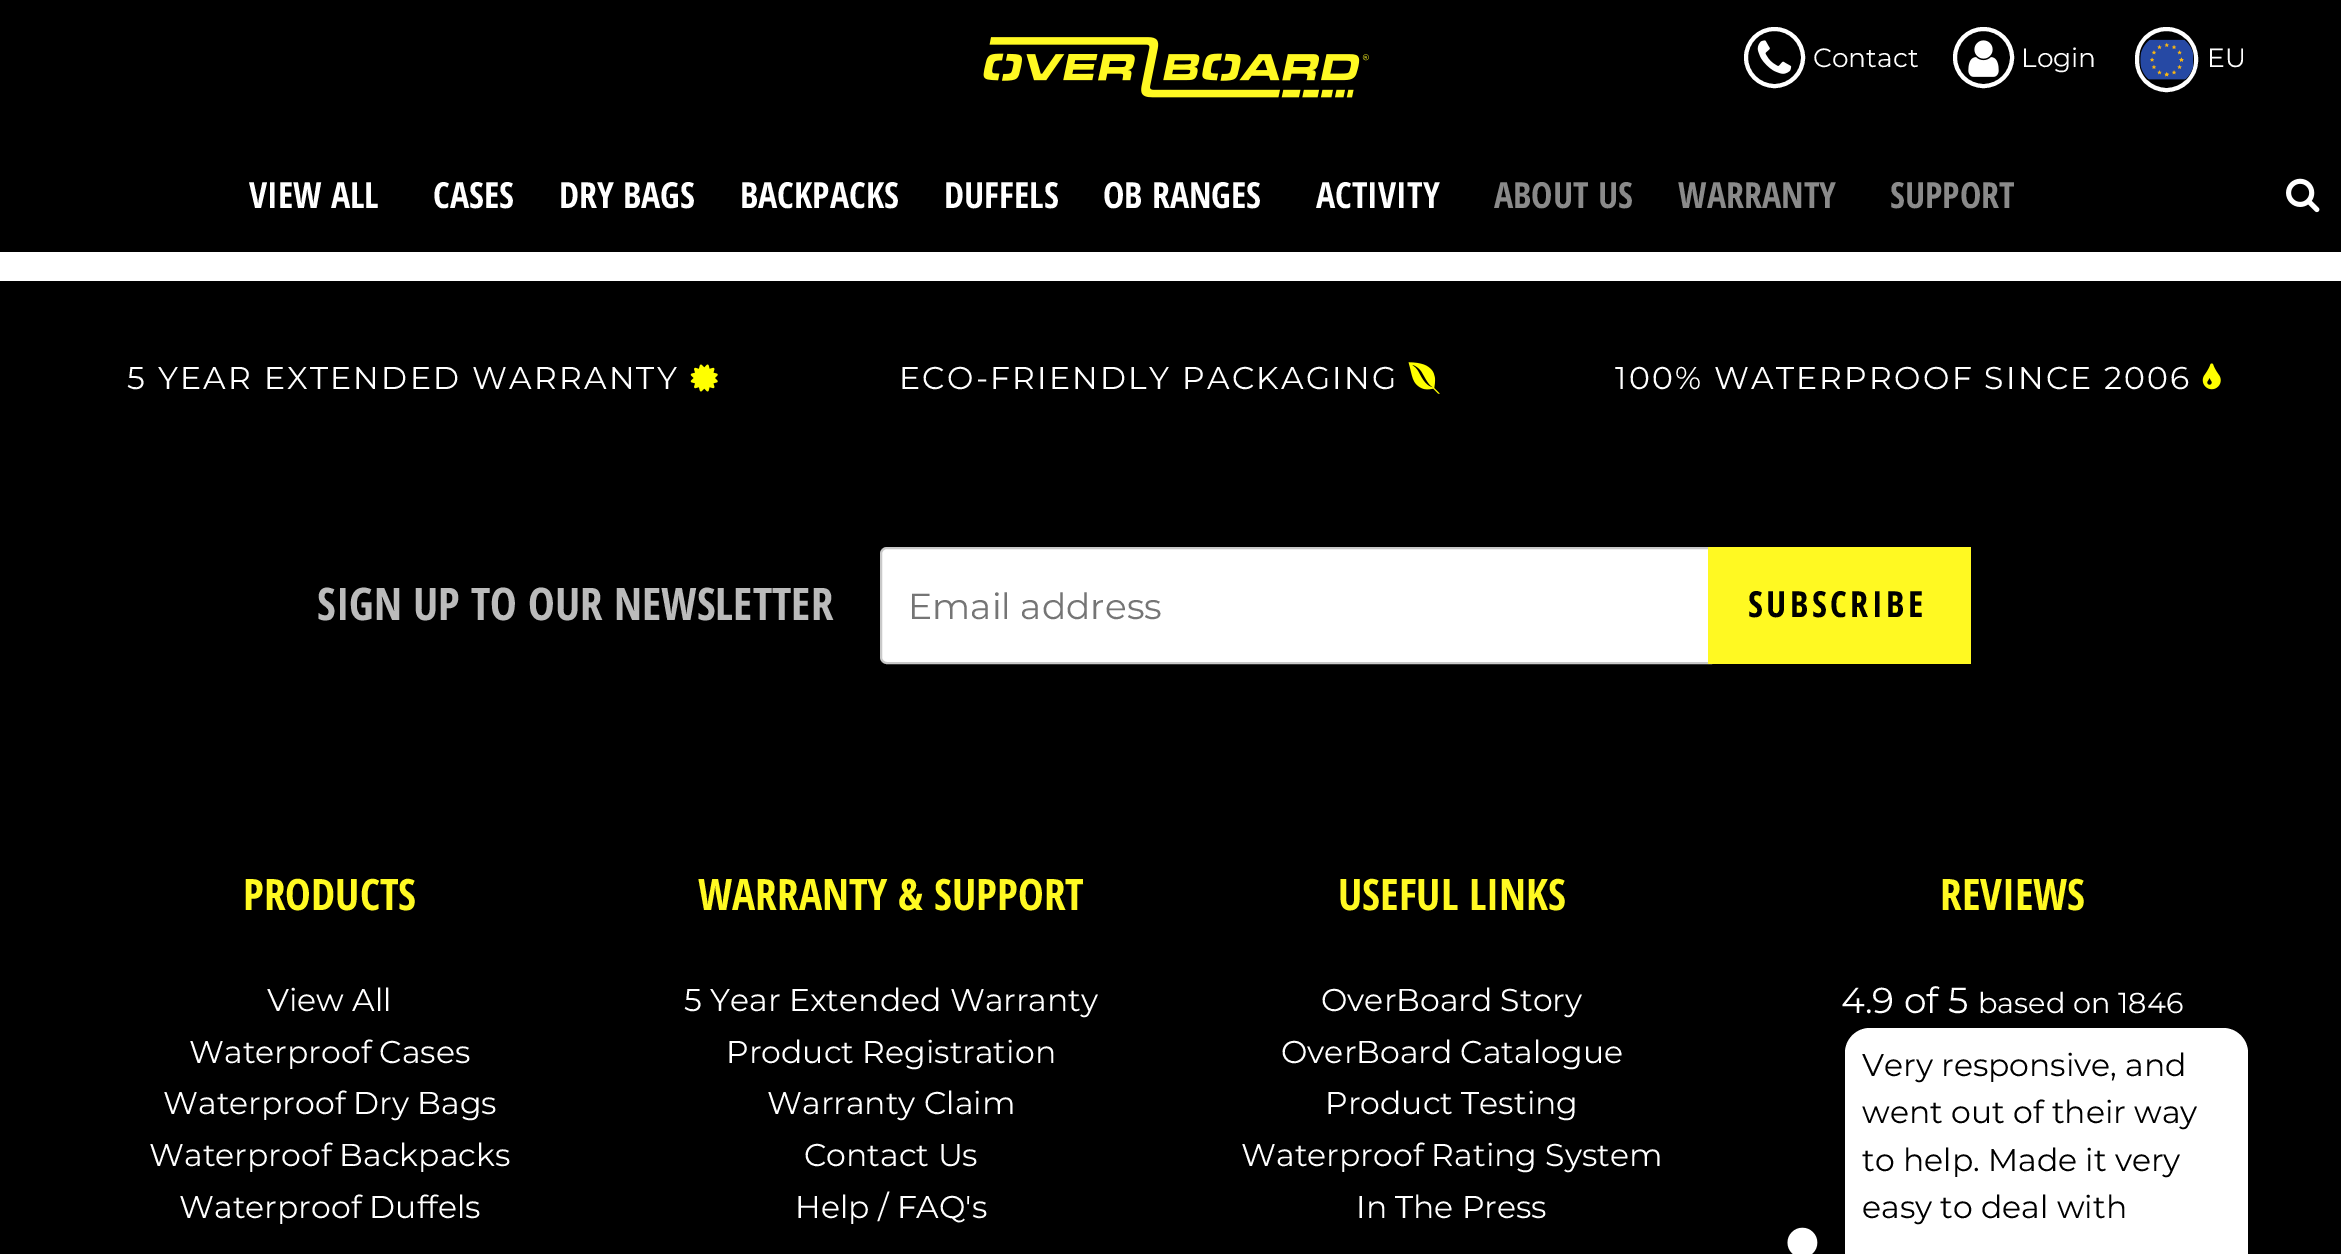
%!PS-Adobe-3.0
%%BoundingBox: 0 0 2341 1254
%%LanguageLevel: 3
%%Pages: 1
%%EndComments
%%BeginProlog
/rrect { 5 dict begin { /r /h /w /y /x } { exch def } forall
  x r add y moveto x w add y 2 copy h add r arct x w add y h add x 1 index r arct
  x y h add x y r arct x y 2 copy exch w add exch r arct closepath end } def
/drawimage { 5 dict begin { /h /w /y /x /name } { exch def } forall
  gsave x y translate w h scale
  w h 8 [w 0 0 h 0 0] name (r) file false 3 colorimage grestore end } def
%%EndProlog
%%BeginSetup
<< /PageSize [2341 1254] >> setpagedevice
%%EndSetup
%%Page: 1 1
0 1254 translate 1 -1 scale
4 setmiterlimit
1 setgray
0 0 2341 1254 rectfill
0 setgray
0 0 2341 252 rectfill
(images/1.raw) 983 37 386 61 drawimage
1 setgray
4 setlinewidth
newpath 1774.5 57.5 28.5 0 360 arc closepath stroke
(images/2.raw) 1757 40 35 34 drawimage
newpath 1983.5 57.5 28.5 0 360 arc closepath stroke
(images/3.raw) 1968 40 31 37 drawimage
2137 29 59 61 29.5 rrect stroke
(images/4.raw) 2140 39 54 41 drawimage
(images/5.raw) 2286 178 34 35 drawimage
0 setgray
0 281 2341 973 rectfill
(images/6.raw) 690 364 28 28 drawimage
(images/7.raw) 1408 362 32 32 drawimage
(images/8.raw) 2202 363 19 27 drawimage
1 setgray
newpath 887 548 moveto 1711 548 lineto 1711 663 lineto 887 663 lineto 883.5 663 881 660.5 881 657 curveto 881 554 lineto 881 550.5 883.5 548 887 548 curveto closepath gsave fill grestore
0.788 setgray
2 setlinewidth
stroke
1 0.976 0.133 setrgbcolor
1708 547 263 117 rectfill
1 setgray
1845 1028 403 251 25 rrect fill
(images/9.raw) 1787 1227 31 27 drawimage
/Montserrat-Thin [26.5 0 0 -26.5 0 0] selectfont
1813 67 moveto (Contact) show
2021 67 moveto (Login) show
2207 67 moveto (EU) show
/OpenSansCondensed-Bold [36 0 0 -36 0 0] selectfont
249 208 moveto (VIEW ALL) show
433 208 moveto (CASES) show
559 208 moveto (DRY BAGS) show
740 208 moveto (BACKPACKS) show
944 208 moveto (DUFFELS) show
1103 208 moveto (OB RANGES) show
1316 208 moveto (ACTIVITY) show
0.541 setgray
1494 208 moveto (ABOUT US) show
1678 208 moveto (WARRANTY) show
1890 208 moveto (SUPPORT) show
/Montserrat-Thin [31.5 0 0 -31.5 0 0] selectfont
1 setgray
127 389 moveto 2.25 0 (5 YEAR EXTENDED WARRANTY) ashow
899 389 moveto 2.25 0 (ECO-FRIENDLY PACKAGING) ashow
1615 389 moveto 2.25 0 (100% WATERPROOF SINCE 2006) ashow
/OpenSansCondensed-Bold [45 0 0 -45 0 0] selectfont
0.733 setgray
317 620 moveto (SIGN UP TO OUR NEWSLETTER) show
/Montserrat-Thin [36 0 0 -36 0 0] selectfont
0.459 setgray
908 619 moveto (Email address) show
/OpenSansCondensed-Bold [36 0 0 -36 0 0] selectfont
0 setgray
1748 617 moveto 3.5 0 (SUBSCRIBE) ashow
/OpenSansCondensed-Bold [43.25 0 0 -43.25 0 0] selectfont
1 0.976 0.133 setrgbcolor
243 910 moveto (PRODUCTS) show
/Montserrat-Thin [31.5 0 0 -31.5 0 0] selectfont
1 setgray
267 1011 moveto (View All) show
189 1063 moveto (Waterproof Cases) show
163 1114 moveto (Waterproof Dry Bags) show
149 1166 moveto (Waterproof Backpacks) show
179 1218 moveto (Waterproof Duffels) show
/OpenSansCondensed-Bold [43.25 0 0 -43.25 0 0] selectfont
1 0.976 0.133 setrgbcolor
698 910 moveto (WARRANTY & SUPPORT) show
/Montserrat-Thin [31.5 0 0 -31.5 0 0] selectfont
1 setgray
684 1011 moveto (5 Year Extended Warranty) show
726 1063 moveto (Product Registration) show
767 1114 moveto (Warranty Claim) show
804 1166 moveto (Contact Us) show
795 1218 moveto (Help / FAQ's) show
/OpenSansCondensed-Bold [43.25 0 0 -43.25 0 0] selectfont
1 0.976 0.133 setrgbcolor
1338 910 moveto (USEFUL LINKS) show
/Montserrat-Thin [31.5 0 0 -31.5 0 0] selectfont
1 setgray
1321 1011 moveto (OverBoard Story) show
1281 1063 moveto (OverBoard Catalogue) show
1325 1114 moveto (Product Testing) show
1241 1166 moveto (Waterproof Rating System) show
1356 1218 moveto (In The Press) show
/OpenSansCondensed-Bold [43.25 0 0 -43.25 0 0] selectfont
1 0.976 0.133 setrgbcolor
1940 910 moveto (REVIEWS) show
/Montserrat-Thin [36 0 0 -36 0 0] selectfont
1 setgray
1841 1013 moveto (4.9 of 5) show
/Montserrat-Thin [28.75 0 0 -28.75 0 0] selectfont
1978 1013 moveto (based on 1846) show
/Montserrat-Thin [31.5 0 0 -31.5 0 0] selectfont
0 setgray
1862 1076 moveto (Very responsive, and) show
1862 1123 moveto (went out of their way) show
1862 1171 moveto (to help. Made it very) show
1862 1218 moveto (easy to deal with) show
showpage
%%EOF
